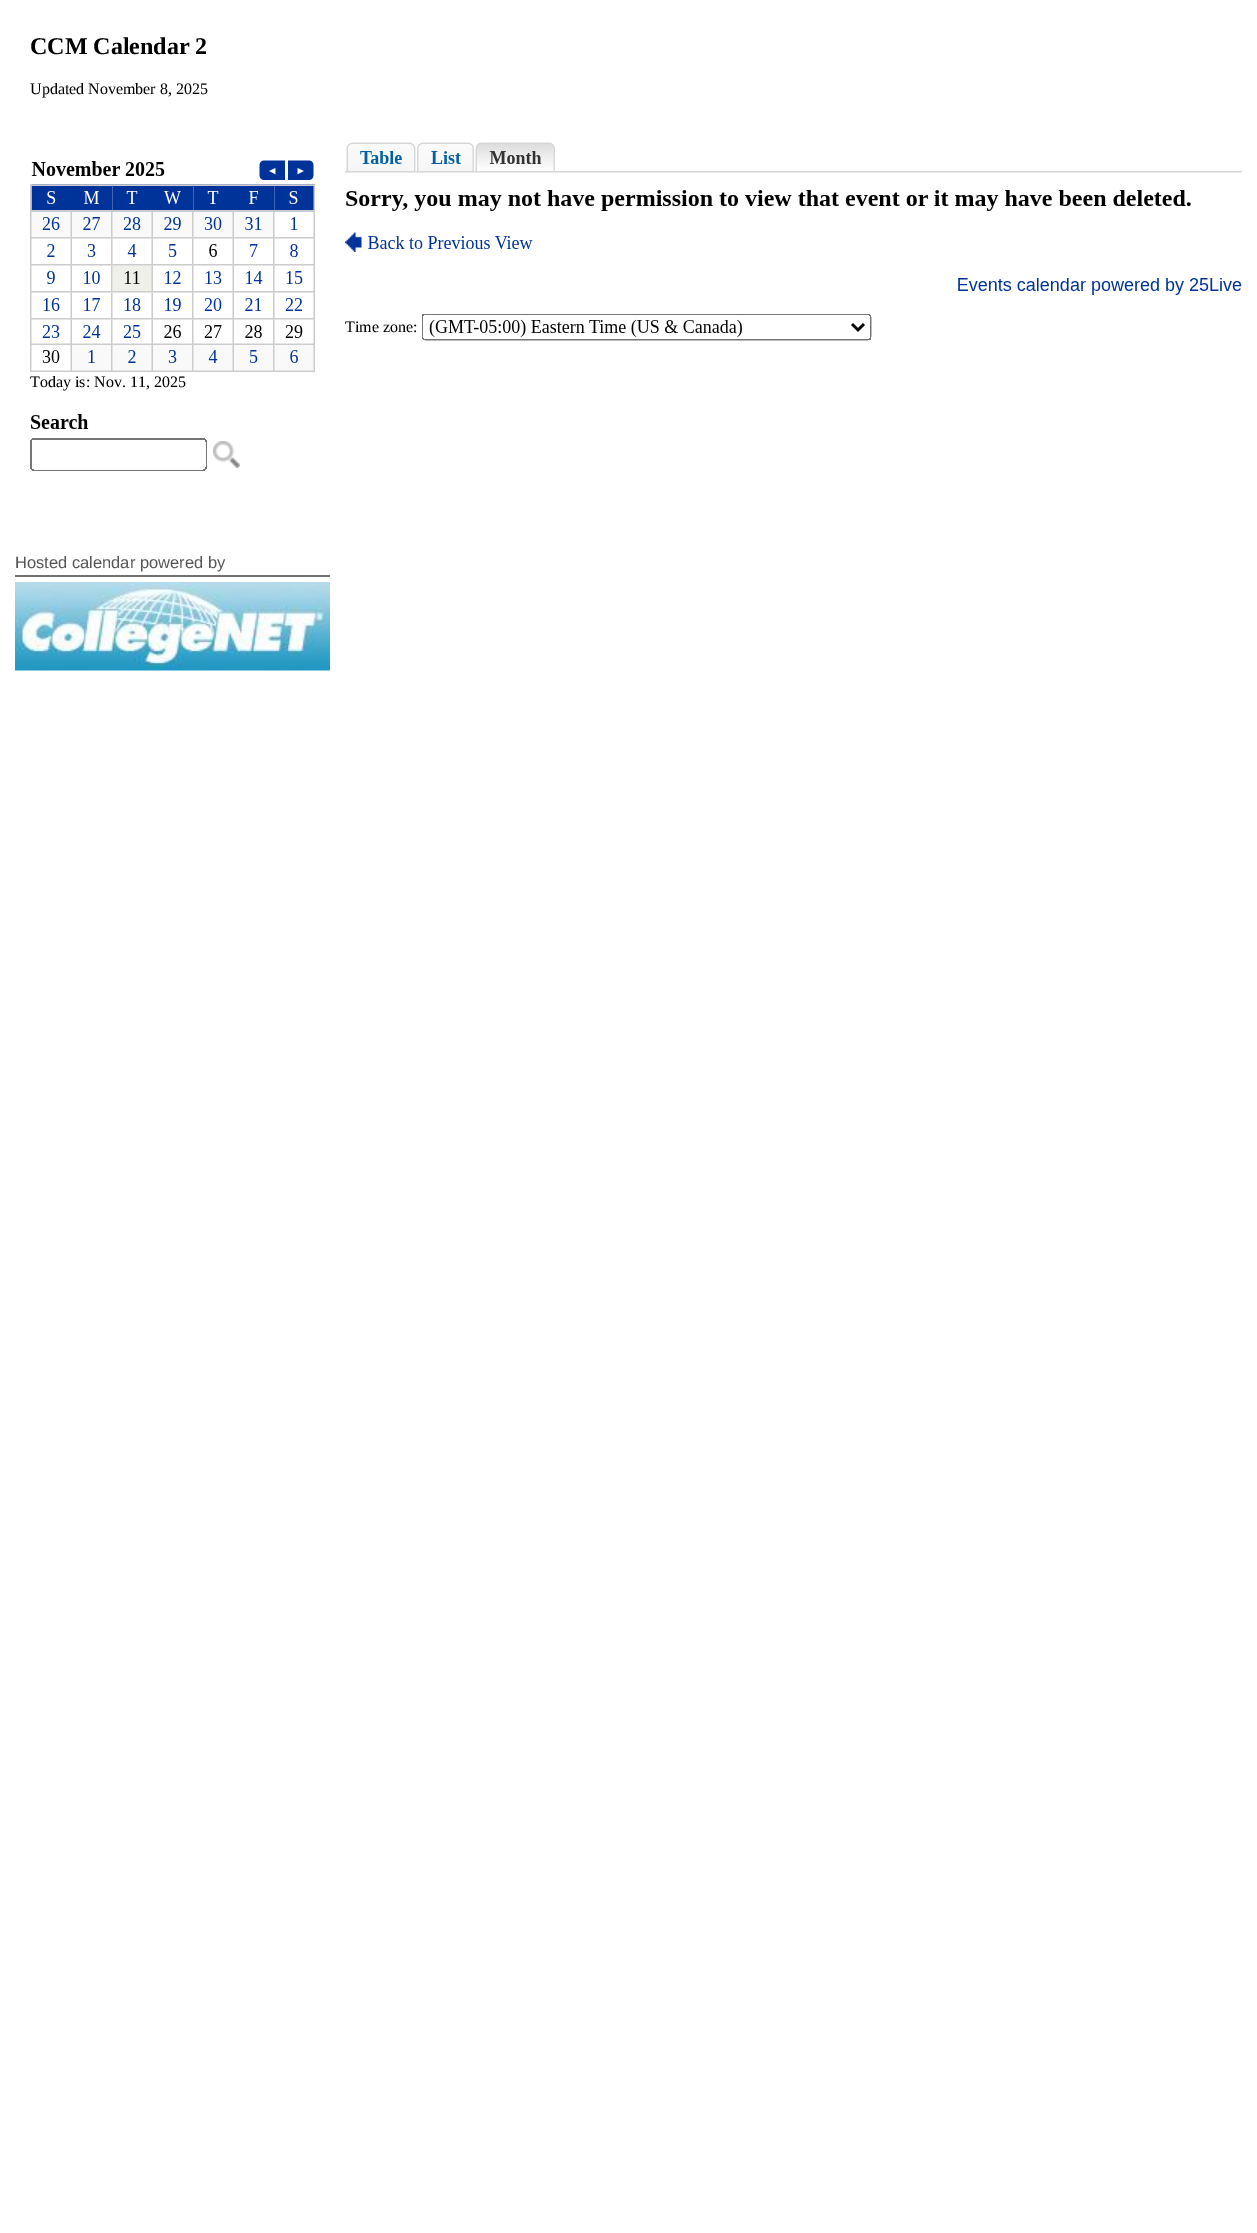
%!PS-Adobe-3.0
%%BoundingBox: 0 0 1257 2233
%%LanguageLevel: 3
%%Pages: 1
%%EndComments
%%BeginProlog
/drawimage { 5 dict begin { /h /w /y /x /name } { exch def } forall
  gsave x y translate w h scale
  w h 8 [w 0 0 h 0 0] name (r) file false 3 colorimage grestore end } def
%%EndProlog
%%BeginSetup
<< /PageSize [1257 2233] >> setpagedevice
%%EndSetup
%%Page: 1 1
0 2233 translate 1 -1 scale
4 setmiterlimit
1 setgray
0 0 1257 2233 rectfill
(images/1.raw) 345 142 897 31 drawimage
(images/2.raw) 345 190 897 105 drawimage
(images/3.raw) 422 314 450 27 drawimage
(images/4.raw) 30 160 285 212 drawimage
(images/5.raw) 30 414 210 57 drawimage
0.443 0.439 0.451 setrgbcolor
15 575 315 2 rectfill
(images/6.raw) 15 582 315 89 drawimage
/LiberationSerif-Bold [24 0 0 -24 0 0] selectfont
0 setgray
30 54 moveto (CCM Calendar 2) show
/LiberationSerif-Regular [16 0 0 -16 0 0] selectfont
30 94 moveto (Updated November 8, 2025) show
345 332 moveto (Time zone:) show
30 387 moveto (Today is: Nov. 11, 2025) show
/LiberationSans-Regular [16.5 0 0 -16.5 0 0] selectfont
0.333 setgray
15 568 moveto (Hosted calendar powered by) show
showpage
%%EOF
